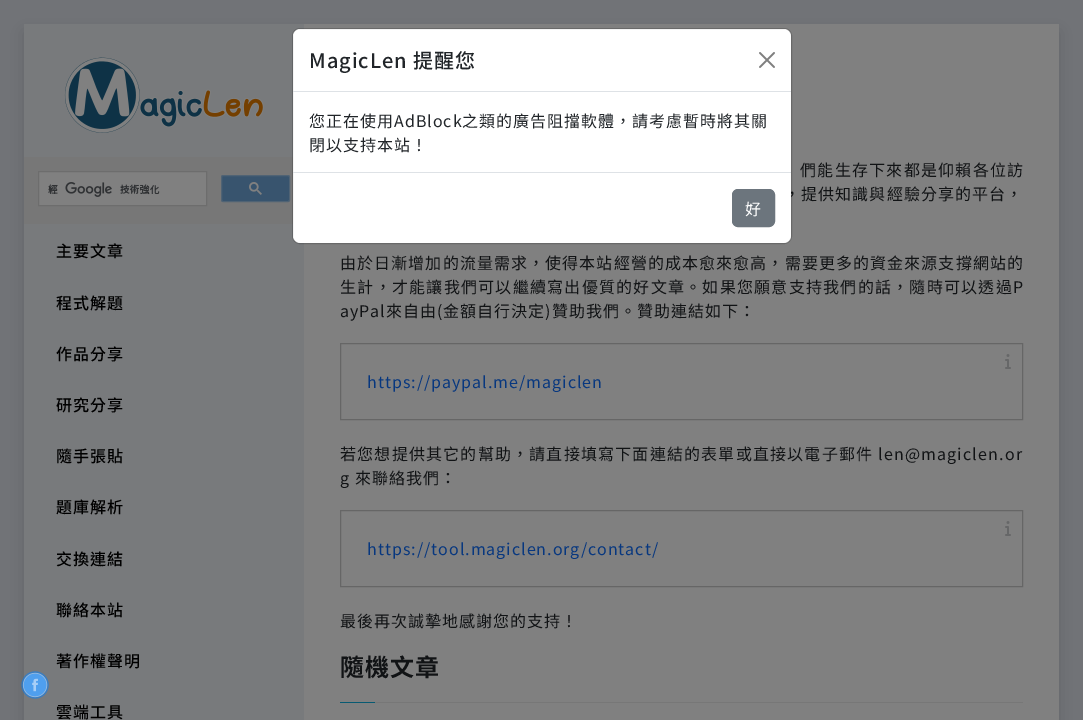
%!PS-Adobe-3.0
%%BoundingBox: 0 0 1083 720
%%LanguageLevel: 3
%%Pages: 1
%%EndComments
%%BeginProlog
/setalpha { dup .setfillconstantalpha .setstrokeconstantalpha } def
/rrect { 5 dict begin { /r /h /w /y /x } { exch def } forall
  x r add y moveto x w add y 2 copy h add r arct x w add y h add x 1 index r arct
  x y h add x y r arct x y 2 copy exch w add exch r arct closepath end } def
/softshadow { 12 dict begin { /a /b /q /h /w /y /x } { exch def } forall gsave /was 0 def
  9 -2 -9 { dup b mul 4 div /e exch def 1 sub .425 mul 2.718 exch exp 1 add a .99 .min exch div /now exch def
    1 1 now sub 1 was sub div sub setalpha /was now def
    w h .min e 2 mul add 0 gt { x e sub y e sub w e 2 mul add h e 2 mul add
      q e add b .6 mul add w h .min 2 div e add .min 0 .max rrect fill } if } for grestore end } def
/drawimage { 5 dict begin { /h /w /y /x /name } { exch def } forall
  gsave x y translate w h scale
  w h 8 [w 0 0 h 0 0] name (r) file false 3 colorimage grestore end } def
%%EndProlog
%%BeginSetup
<< /PageSize [1083 720] /PageUsesTransparency true >> setpagedevice
%%EndSetup
%%Page: 1 1
0 .pushpdf14devicefilter
0 720 translate 1 -1 scale
4 setmiterlimit
0.443 0.451 0.467 setrgbcolor
0 0 1083 720 rectfill
0.067 0.075 0.082 setrgbcolor
24 32 1035 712 0 8 0.15 softshadow
0.471 0.478 0.486 setrgbcolor
24 24 280 696 rectfill
(images/2.raw) 21 671 28 28 drawimage
0.502 setgray
304 24 755 696 rectfill
(images/3.raw) 64 57 200 76 drawimage
0.467 setgray
24 157 269 67 rectfill
0.502 setgray
newpath 38.5 171.5 moveto 206.5 171.5 lineto 206.5 205.5 lineto 38.5 205.5 lineto closepath gsave fill grestore
0.427 setgray
stroke
(images/4.raw) 48 182 112 15 drawimage
0.22 0.329 0.431 setrgbcolor
221.5 175.5 68 26 1.5 rrect gsave fill grestore
0.314 0.388 0.455 setrgbcolor
stroke
(images/5.raw) 249 182 13 13 drawimage
0.4 setgray
340.5 343.5 682 76 rectstroke
(images/6.raw) 1005 354 6 15 drawimage
340.5 510.5 682 76 rectstroke
(images/6.raw) 1005 521 6 15 drawimage
0.027 0.353 0.447 setrgbcolor
340 702 35 1 rectfill
0.467 setgray
375 702 648 1 rectfill
/NotoSansCJKTC-Medium [16 0 0 -16 0 0] selectfont
0 setgray
56 257 moveto 1 0 (主要文章) ashow
56 309 moveto 1 0 (程式解題) ashow
56 360 moveto 1 0 (作品分享) ashow
56 411 moveto 1 0 (研究分享) ashow
56 462 moveto 1 0 (隨手張貼) ashow
56 513 moveto 1 0 (題庫解析) ashow
56 565 moveto 1 0 (交換連結) ashow
56 616 moveto 1 0 (聯絡本站) ashow
56 667 moveto 1 0 (著作權聲明) ashow
56 718 moveto 1 0 (雲端工具) ashow
/NotoSansCJKTC-Regular [16 0 0 -16 0 0] selectfont
0.067 0.075 0.082 setrgbcolor
800 176 moveto 1.25 0 (們能生存下來都是仰賴各位訪) ashow
784 200 moveto 1.1 0 (，提供知識與經驗分享的平台，) ashow
1 setgray
293 29 498 214 7 rrect fill
0.18 setalpha
0 setgray
292.5 28.5 499 215 7.5 rrect stroke
1 setalpha
0.129 0.145 0.161 setrgbcolor
309 151 moveto 1 0 (閉以支持本站！) ashow
309 127 moveto 1 0 (您正在使用AdBlock之類的廣告阻擋軟體，請考慮暫時將其關) ashow
(images/1.raw) 759 52 16 16 drawimage
0.424 0.459 0.49 setrgbcolor
732.5 189.5 42 37 5.5 rrect gsave fill grestore
stroke
1 setgray
745 215 moveto (好) show
0.871 0.886 0.902 setrgbcolor
293 172 498 1 rectfill
/NotoSansCJKTC-Medium [20 0 0 -20 0 0] selectfont
0.129 0.145 0.161 setrgbcolor
309 68 moveto 1 0 (MagicLen 提醒您) ashow
0.871 0.886 0.902 setrgbcolor
293 91 498 1 rectfill
/NotoSansCJKTC-Regular [16 0 0 -16 0 0] selectfont
0.067 0.075 0.082 setrgbcolor
340 269 moveto 1.1 0 (由於日漸增加的流量需求，使得本站經營的成本愈來愈高，需要更多的資金來源支撐網站的) ashow
340 293 moveto 1.25 0 (生計，才能讓我們可以繼續寫出優質的好文章。如果您願意支持我們的話，隨時可以透過P) ashow
340 317 moveto 1 0 (ayPal來自由\(金額自行決定\)贊助我們。贊助連結如下：) ashow
0.027 0.216 0.498 setrgbcolor
367 388 moveto 1 0 (https://paypal.me/magiclen) ashow
0.067 0.075 0.082 setrgbcolor
340 460 moveto 1.2 0 (若您想提供其它的幫助，請直接填寫下面連結的表單或直接以電子郵件 len@magiclen.or) ashow
340 484 moveto 1 0 (g 來聯絡我們：) ashow
0.027 0.216 0.498 setrgbcolor
367 555 moveto 1 0 (https://tool.magiclen.org/contact/) ashow
0.067 0.075 0.082 setrgbcolor
340 627 moveto 1 0 (最後再次誠摯地感謝您的支持！) ashow
/NotoSansCJKTC-Bold [24 0 0 -24 0 0] selectfont
340 676 moveto 1 0 (隨機文章) ashow
.poppdf14devicefilter showpage
%%EOF
